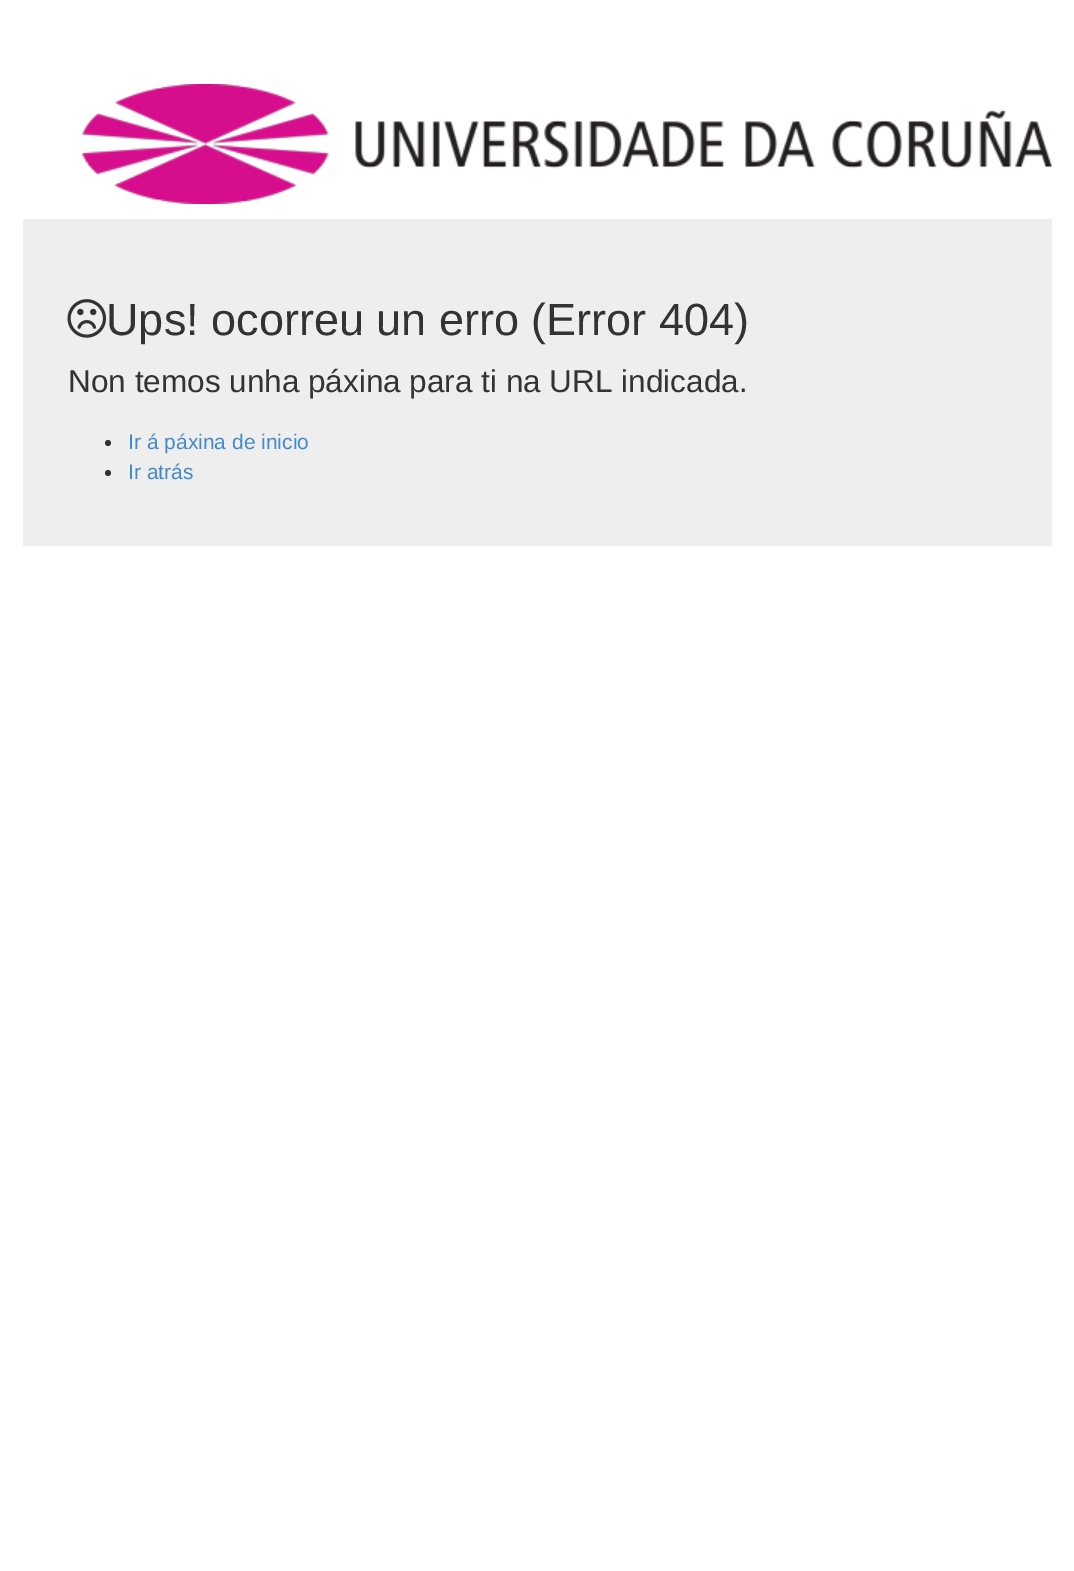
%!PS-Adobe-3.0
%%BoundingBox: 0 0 1074 1571
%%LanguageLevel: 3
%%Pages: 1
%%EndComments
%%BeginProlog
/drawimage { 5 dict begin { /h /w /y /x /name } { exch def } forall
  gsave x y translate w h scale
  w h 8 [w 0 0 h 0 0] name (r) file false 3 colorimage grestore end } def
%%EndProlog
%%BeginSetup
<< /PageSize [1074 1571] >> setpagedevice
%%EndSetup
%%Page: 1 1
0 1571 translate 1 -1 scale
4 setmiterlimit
1 setgray
0 0 1074 1571 rectfill
(images/1.raw) 82 84 970 120 drawimage
0.933 setgray
23 219 1029 327 rectfill
(images/2.raw) 67 299 40 39 drawimage
0.2 setgray
newpath 108 443 3 0 360 arc closepath fill
newpath 108 473 3 0 360 arc closepath fill
/LiberationSans-Regular [45 0 0 -45 0 0] selectfont
106 335 moveto (Ups! ocorreu un erro \(Error 404\)) show
/LiberationSans-Regular [31.5 0 0 -31.5 0 0] selectfont
68 392 moveto (Non temos unha páxina para ti na URL indicada.) show
/LiberationSans-Regular [21 0 0 -21 0 0] selectfont
0.259 0.545 0.792 setrgbcolor
128 449 moveto (Ir á páxina de inicio) show
128 479 moveto (Ir atrás) show
showpage
%%EOF
